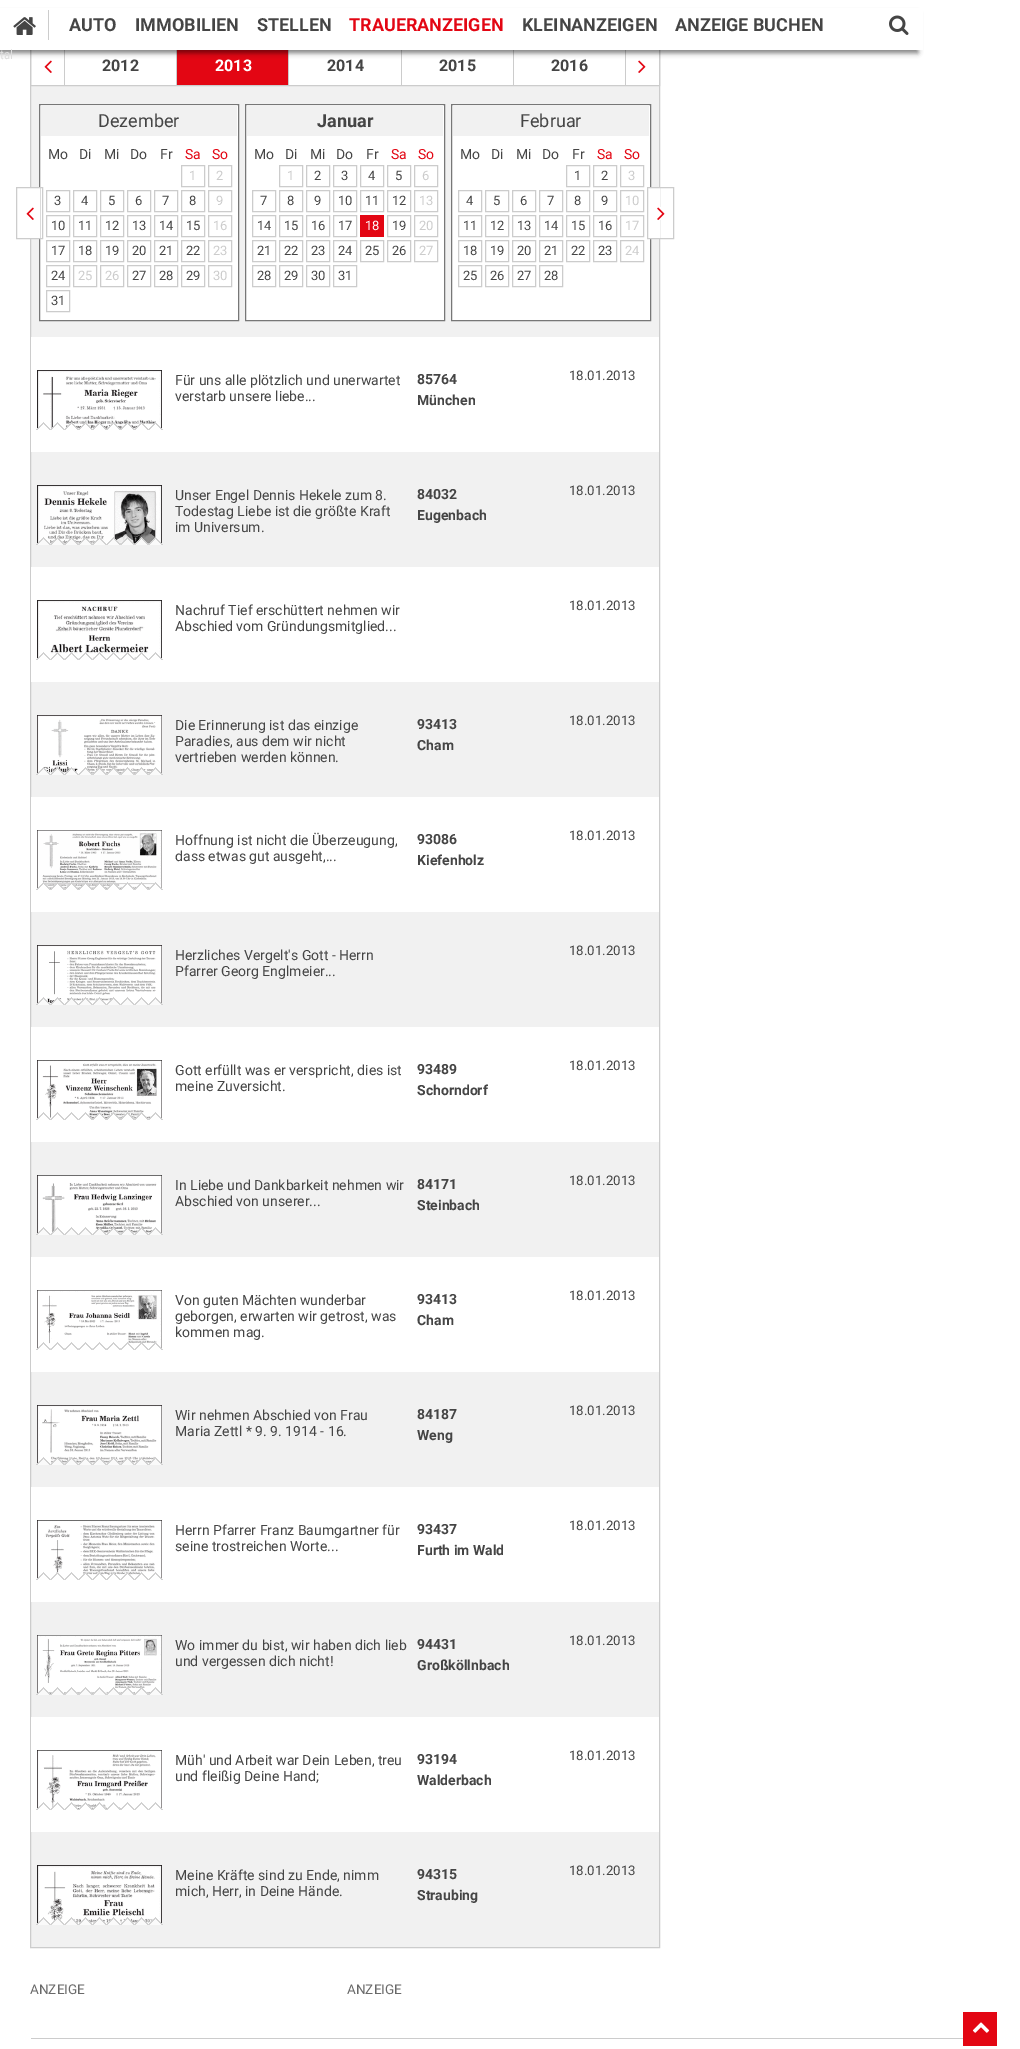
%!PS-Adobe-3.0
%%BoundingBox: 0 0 1020 2049
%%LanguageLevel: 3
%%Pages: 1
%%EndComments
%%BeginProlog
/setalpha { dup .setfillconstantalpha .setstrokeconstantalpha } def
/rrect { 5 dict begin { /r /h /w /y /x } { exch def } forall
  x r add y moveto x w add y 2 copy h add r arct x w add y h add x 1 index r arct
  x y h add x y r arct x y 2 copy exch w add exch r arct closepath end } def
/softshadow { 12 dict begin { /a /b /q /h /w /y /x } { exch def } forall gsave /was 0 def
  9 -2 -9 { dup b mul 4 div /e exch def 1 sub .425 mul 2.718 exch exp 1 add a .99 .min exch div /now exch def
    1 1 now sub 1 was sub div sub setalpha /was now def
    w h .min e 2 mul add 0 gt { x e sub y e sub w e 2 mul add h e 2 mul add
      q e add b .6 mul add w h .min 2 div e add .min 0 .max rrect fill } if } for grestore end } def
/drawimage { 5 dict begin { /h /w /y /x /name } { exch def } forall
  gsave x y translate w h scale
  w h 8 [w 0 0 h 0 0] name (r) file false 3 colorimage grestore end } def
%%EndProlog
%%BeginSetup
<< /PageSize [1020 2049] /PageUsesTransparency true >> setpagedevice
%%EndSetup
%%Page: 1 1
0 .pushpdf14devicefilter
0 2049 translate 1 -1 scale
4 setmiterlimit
1 setgray
0 0 1020 2049 rectfill
0.945 setgray
31 86 628 1861 rectfill
0.8 setgray
30.5 48.5 629 1899 rectstroke
30.5 48.5 629 37 rectstroke
64 49 1 36 rectfill
(images/3.raw) 44 60 8 13 drawimage
176 49 1 36 rectfill
0.89 0.024 0.075 setrgbcolor
177 50 111 35 rectfill
0.8 setgray
288 49 1 36 rectfill
401 49 1 36 rectfill
513 49 1 36 rectfill
625 49 1 36 rectfill
(images/4.raw) 638 60 8 13 drawimage
0 setgray
-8 13 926 40 0 2.5 0.5 softshadow
1 setgray
0 8 923 42 rectfill
0.8 setgray
48 10 1 30 rectfill
(images/1.raw) 13 17 23 18 drawimage
(images/2.raw) 889 15 20 20 drawimage
1 setgray
newpath 39.5 104.5 moveto 238.5 104.5 lineto 238.5 320.5 lineto 39.5 320.5 lineto closepath gsave fill grestore
0.467 setgray
stroke
1 setgray
30 188 10 50 rectfill
0.8 setgray
16.5 187.5 26 51 rectstroke
(images/3.raw) 26 207 8 13 drawimage
0.945 setgray
41 105 196 31 rectfill
0.8 setgray
181.5 165.5 23 21 rectstroke
208.5 165.5 23 21 rectstroke
46.5 190.5 23 21 rectstroke
73.5 190.5 23 21 rectstroke
100.5 190.5 23 21 rectstroke
127.5 190.5 23 21 rectstroke
154.5 190.5 23 21 rectstroke
181.5 190.5 23 21 rectstroke
208.5 190.5 23 21 rectstroke
46.5 215.5 23 21 rectstroke
73.5 215.5 23 21 rectstroke
100.5 215.5 23 21 rectstroke
127.5 215.5 23 21 rectstroke
154.5 215.5 23 21 rectstroke
181.5 215.5 23 21 rectstroke
208.5 215.5 23 21 rectstroke
46.5 240.5 23 21 rectstroke
73.5 240.5 23 21 rectstroke
100.5 240.5 23 21 rectstroke
127.5 240.5 23 21 rectstroke
154.5 240.5 23 21 rectstroke
181.5 240.5 23 21 rectstroke
208.5 240.5 23 21 rectstroke
46.5 265.5 23 21 rectstroke
73.5 265.5 23 21 rectstroke
100.5 265.5 23 21 rectstroke
127.5 265.5 23 21 rectstroke
154.5 265.5 23 21 rectstroke
181.5 265.5 23 21 rectstroke
208.5 265.5 23 21 rectstroke
46.5 290.5 23 21 rectstroke
1 setgray
newpath 245.5 104.5 moveto 444.5 104.5 lineto 444.5 320.5 lineto 245.5 320.5 lineto closepath gsave fill grestore
0.467 setgray
stroke
0.945 setgray
247 105 196 31 rectfill
0.8 setgray
279.5 165.5 23 21 rectstroke
306.5 165.5 23 21 rectstroke
333.5 165.5 23 21 rectstroke
360.5 165.5 23 21 rectstroke
387.5 165.5 23 21 rectstroke
414.5 165.5 23 21 rectstroke
252.5 190.5 23 21 rectstroke
279.5 190.5 23 21 rectstroke
306.5 190.5 23 21 rectstroke
333.5 190.5 23 21 rectstroke
360.5 190.5 23 21 rectstroke
387.5 190.5 23 21 rectstroke
414.5 190.5 23 21 rectstroke
252.5 215.5 23 21 rectstroke
279.5 215.5 23 21 rectstroke
306.5 215.5 23 21 rectstroke
333.5 215.5 23 21 rectstroke
0.89 0.024 0.075 setrgbcolor
360 215 24 22 rectfill
0.8 setgray
387.5 215.5 23 21 rectstroke
414.5 215.5 23 21 rectstroke
252.5 240.5 23 21 rectstroke
279.5 240.5 23 21 rectstroke
306.5 240.5 23 21 rectstroke
333.5 240.5 23 21 rectstroke
360.5 240.5 23 21 rectstroke
387.5 240.5 23 21 rectstroke
414.5 240.5 23 21 rectstroke
252.5 265.5 23 21 rectstroke
279.5 265.5 23 21 rectstroke
306.5 265.5 23 21 rectstroke
333.5 265.5 23 21 rectstroke
1 setgray
newpath 451.5 104.5 moveto 650.5 104.5 lineto 650.5 320.5 lineto 451.5 320.5 lineto closepath gsave fill grestore
0.467 setgray
stroke
0.945 setgray
453 105 196 31 rectfill
0.8 setgray
566.5 165.5 23 21 rectstroke
593.5 165.5 23 21 rectstroke
620.5 165.5 23 21 rectstroke
458.5 190.5 23 21 rectstroke
485.5 190.5 23 21 rectstroke
512.5 190.5 23 21 rectstroke
539.5 190.5 23 21 rectstroke
566.5 190.5 23 21 rectstroke
593.5 190.5 23 21 rectstroke
620.5 190.5 23 21 rectstroke
458.5 215.5 23 21 rectstroke
485.5 215.5 23 21 rectstroke
512.5 215.5 23 21 rectstroke
539.5 215.5 23 21 rectstroke
566.5 215.5 23 21 rectstroke
593.5 215.5 23 21 rectstroke
620.5 215.5 23 21 rectstroke
458.5 240.5 23 21 rectstroke
485.5 240.5 23 21 rectstroke
512.5 240.5 23 21 rectstroke
539.5 240.5 23 21 rectstroke
566.5 240.5 23 21 rectstroke
593.5 240.5 23 21 rectstroke
620.5 240.5 23 21 rectstroke
458.5 265.5 23 21 rectstroke
485.5 265.5 23 21 rectstroke
512.5 265.5 23 21 rectstroke
539.5 265.5 23 21 rectstroke
1 setgray
650 188 10 50 rectfill
0.8 setgray
647.5 187.5 26 51 rectstroke
(images/4.raw) 657 207 8 13 drawimage
1 setgray
31 337 628 115 rectfill
(images/5.raw) 37 370 125 59 drawimage
(images/6.raw) 36 422 127 8 drawimage
(images/7.raw) 37 485 125 59 drawimage
(images/8.raw) 36 537 127 8 drawimage
31 567 628 115 rectfill
(images/9.raw) 37 600 125 59 drawimage
(images/10.raw) 36 652 127 8 drawimage
(images/11.raw) 37 715 125 59 drawimage
(images/12.raw) 36 767 127 8 drawimage
31 797 628 115 rectfill
(images/13.raw) 37 830 125 59 drawimage
(images/14.raw) 36 882 127 8 drawimage
(images/15.raw) 37 945 125 59 drawimage
(images/16.raw) 36 997 127 8 drawimage
31 1027 628 115 rectfill
(images/17.raw) 37 1060 125 59 drawimage
(images/18.raw) 36 1112 127 8 drawimage
(images/19.raw) 37 1175 125 59 drawimage
(images/20.raw) 36 1227 127 8 drawimage
31 1257 628 115 rectfill
(images/21.raw) 37 1290 125 59 drawimage
(images/22.raw) 36 1342 127 8 drawimage
(images/23.raw) 37 1405 125 59 drawimage
(images/24.raw) 36 1457 127 8 drawimage
31 1487 628 115 rectfill
(images/25.raw) 37 1520 125 59 drawimage
(images/26.raw) 36 1572 127 8 drawimage
(images/27.raw) 37 1635 125 59 drawimage
(images/28.raw) 36 1687 127 8 drawimage
31 1717 628 115 rectfill
(images/29.raw) 37 1750 125 59 drawimage
(images/30.raw) 36 1802 127 8 drawimage
(images/31.raw) 37 1865 125 59 drawimage
(images/32.raw) 36 1917 127 8 drawimage
0.8 setgray
31 2038 932 1 rectfill
0.89 0.024 0.075 setrgbcolor
963 2012 34 34 rectfill
(images/33.raw) 972 2022 18 11 drawimage
/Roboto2-Bold [18 0 0 -18 0 0] selectfont
0.271 setgray
69 31 moveto (AUTO) show
135 31 moveto (IMMOBILIEN) show
257 31 moveto (STELLEN) show
0.89 0.024 0.075 setrgbcolor
349 31 moveto (TRAUERANZEIGEN) show
0.271 setgray
522 31 moveto (KLEINANZEIGEN) show
675 31 moveto (ANZEIGE BUCHEN) show
/RobotoCondensed-Regular [13 0 0 -13 0 0] selectfont
0.867 setgray
0 59 moveto (tal) show
/Roboto-Bold [16 0 0 -16 0 0] selectfont
0.271 setgray
102 71 moveto (2012) show
1 setgray
215 71 moveto (2013) show
0.271 setgray
327 71 moveto (2014) show
439 71 moveto (2015) show
551 71 moveto (2016) show
/Roboto-Regular [18 0 0 -18 0 0] selectfont
98 127 moveto (Dezember) show
/Roboto-Regular [14 0 0 -14 0 0] selectfont
48 159 moveto (Mo) show
79 159 moveto (Di) show
104 159 moveto (Mi) show
130 159 moveto (Do) show
160 159 moveto (Fr) show
0.89 0.024 0.075 setrgbcolor
185 159 moveto (Sa) show
212 159 moveto (So) show
/Roboto-Regular [13 0 0 -13 0 0] selectfont
0.8 setgray
189 180 moveto (1) show
216 180 moveto (2) show
0.271 setgray
54 205 moveto (3) show
81 205 moveto (4) show
108 205 moveto (5) show
135 205 moveto (6) show
162 205 moveto (7) show
189 205 moveto (8) show
0.8 setgray
216 205 moveto (9) show
0.271 setgray
51 230 moveto (10) show
78 230 moveto (11) show
105 230 moveto (12) show
132 230 moveto (13) show
159 230 moveto (14) show
186 230 moveto (15) show
0.8 setgray
213 230 moveto (16) show
0.271 setgray
51 255 moveto (17) show
78 255 moveto (18) show
105 255 moveto (19) show
132 255 moveto (20) show
159 255 moveto (21) show
186 255 moveto (22) show
0.8 setgray
213 255 moveto (23) show
0.271 setgray
51 280 moveto (24) show
0.8 setgray
78 280 moveto (25) show
105 280 moveto (26) show
0.271 setgray
132 280 moveto (27) show
159 280 moveto (28) show
186 280 moveto (29) show
0.8 setgray
213 280 moveto (30) show
0.271 setgray
51 305 moveto (31) show
/Roboto-Bold [18 0 0 -18 0 0] selectfont
317 127 moveto (Januar) show
/Roboto-Regular [14 0 0 -14 0 0] selectfont
254 159 moveto (Mo) show
285 159 moveto (Di) show
310 159 moveto (Mi) show
336 159 moveto (Do) show
366 159 moveto (Fr) show
0.89 0.024 0.075 setrgbcolor
391 159 moveto (Sa) show
418 159 moveto (So) show
/Roboto-Regular [13 0 0 -13 0 0] selectfont
0.8 setgray
287 180 moveto (1) show
0.271 setgray
314 180 moveto (2) show
341 180 moveto (3) show
368 180 moveto (4) show
395 180 moveto (5) show
0.8 setgray
422 180 moveto (6) show
0.271 setgray
260 205 moveto (7) show
287 205 moveto (8) show
314 205 moveto (9) show
338 205 moveto (10) show
365 205 moveto (11) show
392 205 moveto (12) show
0.8 setgray
419 205 moveto (13) show
0.271 setgray
257 230 moveto (14) show
284 230 moveto (15) show
311 230 moveto (16) show
338 230 moveto (17) show
1 setgray
365 230 moveto (18) show
0.271 setgray
392 230 moveto (19) show
0.8 setgray
419 230 moveto (20) show
0.271 setgray
257 255 moveto (21) show
284 255 moveto (22) show
311 255 moveto (23) show
338 255 moveto (24) show
365 255 moveto (25) show
392 255 moveto (26) show
0.8 setgray
419 255 moveto (27) show
0.271 setgray
257 280 moveto (28) show
284 280 moveto (29) show
311 280 moveto (30) show
338 280 moveto (31) show
/Roboto-Regular [18 0 0 -18 0 0] selectfont
520 127 moveto (Februar) show
/Roboto-Regular [14 0 0 -14 0 0] selectfont
460 159 moveto (Mo) show
491 159 moveto (Di) show
516 159 moveto (Mi) show
542 159 moveto (Do) show
572 159 moveto (Fr) show
0.89 0.024 0.075 setrgbcolor
597 159 moveto (Sa) show
624 159 moveto (So) show
/Roboto-Regular [13 0 0 -13 0 0] selectfont
0.271 setgray
574 180 moveto (1) show
601 180 moveto (2) show
0.8 setgray
628 180 moveto (3) show
0.271 setgray
466 205 moveto (4) show
493 205 moveto (5) show
520 205 moveto (6) show
547 205 moveto (7) show
574 205 moveto (8) show
601 205 moveto (9) show
0.8 setgray
625 205 moveto (10) show
0.271 setgray
463 230 moveto (11) show
490 230 moveto (12) show
517 230 moveto (13) show
544 230 moveto (14) show
571 230 moveto (15) show
598 230 moveto (16) show
0.8 setgray
625 230 moveto (17) show
0.271 setgray
463 255 moveto (18) show
490 255 moveto (19) show
517 255 moveto (20) show
544 255 moveto (21) show
571 255 moveto (22) show
598 255 moveto (23) show
0.8 setgray
625 255 moveto (24) show
0.271 setgray
463 280 moveto (25) show
490 280 moveto (26) show
517 280 moveto (27) show
544 280 moveto (28) show
/Roboto-Regular [14 0 0 -14 0 0] selectfont
175 385 moveto (Für uns alle plötzlich und unerwartet) show
175 401 moveto (verstarb unsere liebe...) show
/Roboto-Bold [14 0 0 -14 0 0] selectfont
417 384 moveto (85764) show
417 405 moveto (München) show
/Roboto-Regular [13.25 0 0 -13.25 0 0] selectfont
569 380 moveto (18.01.2013) show
/Roboto-Regular [14 0 0 -14 0 0] selectfont
175 500 moveto (Unser Engel Dennis Hekele zum 8.) show
175 516 moveto (Todestag Liebe ist die größte Kraft) show
175 532 moveto (im Universum.) show
/Roboto-Bold [14 0 0 -14 0 0] selectfont
417 499 moveto (84032) show
417 520 moveto (Eugenbach) show
/Roboto-Regular [13.25 0 0 -13.25 0 0] selectfont
569 495 moveto (18.01.2013) show
/Roboto-Regular [14 0 0 -14 0 0] selectfont
175 615 moveto (Nachruf Tief erschüttert nehmen wir) show
175 631 moveto (Abschied vom Gründungsmitglied...) show
/Roboto-Regular [13.25 0 0 -13.25 0 0] selectfont
569 610 moveto (18.01.2013) show
/Roboto-Regular [14 0 0 -14 0 0] selectfont
175 730 moveto (Die Erinnerung ist das einzige) show
175 746 moveto (Paradies, aus dem wir nicht) show
175 762 moveto (vertrieben werden können.) show
/Roboto-Bold [14 0 0 -14 0 0] selectfont
417 729 moveto (93413) show
417 750 moveto (Cham) show
/Roboto-Regular [13.25 0 0 -13.25 0 0] selectfont
569 725 moveto (18.01.2013) show
/Roboto-Regular [14 0 0 -14 0 0] selectfont
175 845 moveto (Hoffnung ist nicht die Überzeugung,) show
175 861 moveto (dass etwas gut ausgeht,...) show
/Roboto-Bold [14 0 0 -14 0 0] selectfont
417 844 moveto (93086) show
417 865 moveto (Kiefenholz) show
/Roboto-Regular [13.25 0 0 -13.25 0 0] selectfont
569 840 moveto (18.01.2013) show
/Roboto-Regular [14 0 0 -14 0 0] selectfont
175 960 moveto (Herzliches Vergelt's Gott - Herrn) show
175 976 moveto (Pfarrer Georg Englmeier...) show
/Roboto-Regular [13.25 0 0 -13.25 0 0] selectfont
569 955 moveto (18.01.2013) show
/Roboto-Regular [14 0 0 -14 0 0] selectfont
175 1075 moveto (Gott erfüllt was er verspricht, dies ist) show
175 1091 moveto (meine Zuversicht.) show
/Roboto-Bold [14 0 0 -14 0 0] selectfont
417 1074 moveto (93489) show
417 1095 moveto (Schorndorf) show
/Roboto-Regular [13.25 0 0 -13.25 0 0] selectfont
569 1070 moveto (18.01.2013) show
/Roboto-Regular [14 0 0 -14 0 0] selectfont
175 1190 moveto (In Liebe und Dankbarkeit nehmen wir) show
175 1206 moveto (Abschied von unserer...) show
/Roboto-Bold [14 0 0 -14 0 0] selectfont
417 1189 moveto (84171) show
417 1210 moveto (Steinbach) show
/Roboto-Regular [13.25 0 0 -13.25 0 0] selectfont
569 1185 moveto (18.01.2013) show
/Roboto-Regular [14 0 0 -14 0 0] selectfont
175 1305 moveto (Von guten Mächten wunderbar) show
175 1321 moveto (geborgen, erwarten wir getrost, was) show
175 1337 moveto (kommen mag.) show
/Roboto-Bold [14 0 0 -14 0 0] selectfont
417 1304 moveto (93413) show
417 1325 moveto (Cham) show
/Roboto-Regular [13.25 0 0 -13.25 0 0] selectfont
569 1300 moveto (18.01.2013) show
/Roboto-Regular [14 0 0 -14 0 0] selectfont
175 1420 moveto (Wir nehmen Abschied von Frau) show
175 1436 moveto (Maria Zettl * 9. 9. 1914 - 16.) show
/Roboto-Bold [14 0 0 -14 0 0] selectfont
417 1419 moveto (84187) show
417 1440 moveto (Weng) show
/Roboto-Regular [13.25 0 0 -13.25 0 0] selectfont
569 1415 moveto (18.01.2013) show
/Roboto-Regular [14 0 0 -14 0 0] selectfont
175 1535 moveto (Herrn Pfarrer Franz Baumgartner für) show
175 1551 moveto (seine trostreichen Worte...) show
/Roboto-Bold [14 0 0 -14 0 0] selectfont
417 1534 moveto (93437) show
417 1555 moveto (Furth im Wald) show
/Roboto-Regular [13.25 0 0 -13.25 0 0] selectfont
569 1530 moveto (18.01.2013) show
/Roboto-Regular [14 0 0 -14 0 0] selectfont
175 1650 moveto (Wo immer du bist, wir haben dich lieb) show
175 1666 moveto (und vergessen dich nicht!) show
/Roboto-Bold [14 0 0 -14 0 0] selectfont
417 1649 moveto (94431) show
417 1670 moveto (Großköllnbach) show
/Roboto-Regular [13.25 0 0 -13.25 0 0] selectfont
569 1645 moveto (18.01.2013) show
/Roboto-Regular [14 0 0 -14 0 0] selectfont
175 1765 moveto (Müh' und Arbeit war Dein Leben, treu) show
175 1781 moveto (und fleißig Deine Hand;) show
/Roboto-Bold [14 0 0 -14 0 0] selectfont
417 1764 moveto (93194) show
417 1785 moveto (Walderbach) show
/Roboto-Regular [13.25 0 0 -13.25 0 0] selectfont
569 1760 moveto (18.01.2013) show
/Roboto-Regular [14 0 0 -14 0 0] selectfont
175 1880 moveto (Meine Kräfte sind zu Ende, nimm) show
175 1896 moveto (mich, Herr, in Deine Hände.) show
/Roboto-Bold [14 0 0 -14 0 0] selectfont
417 1879 moveto (94315) show
417 1900 moveto (Straubing) show
/Roboto-Regular [13.25 0 0 -13.25 0 0] selectfont
569 1875 moveto (18.01.2013) show
/Roboto-Regular [13.5 0 0 -13.5 0 0] selectfont
0.412 setgray
30 1994 moveto (ANZEIGE) show
347 1994 moveto (ANZEIGE) show
.poppdf14devicefilter showpage
%%EOF
